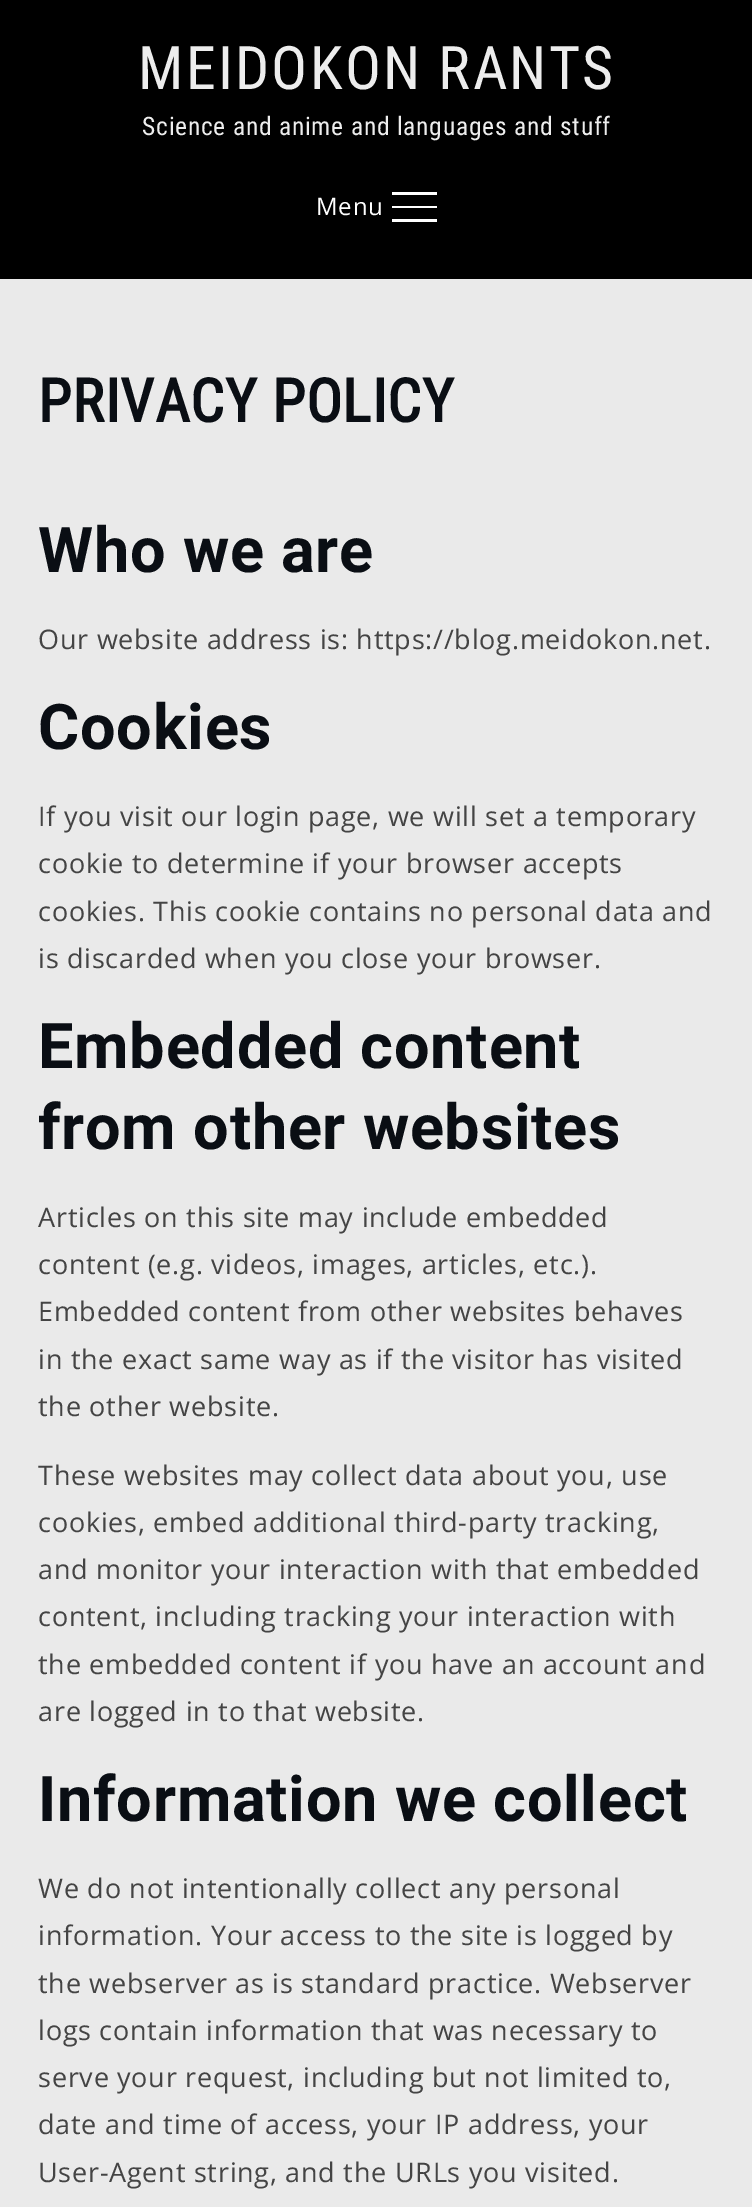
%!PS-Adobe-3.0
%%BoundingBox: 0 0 752 2207
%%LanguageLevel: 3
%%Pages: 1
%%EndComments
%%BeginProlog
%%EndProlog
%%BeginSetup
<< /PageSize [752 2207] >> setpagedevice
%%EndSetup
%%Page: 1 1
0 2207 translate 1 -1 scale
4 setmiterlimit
0.918 setgray
0 0 752 2207 rectfill
0 setgray
0 0 752 279 rectfill
1 setgray
392 192 45 3 rectfill
392 206 45 2 rectfill
392 219 45 3 rectfill
/RobotoCondensed-Regular [60 0 0 -60 0 0] selectfont
0.929 setgray
138 89 moveto 2.25 0 (MEIDOKON RANTS) ashow
/RobotoCondensed-Regular [25.5 0 0 -25.5 0 0] selectfont
142 135 moveto 0.75 0 (Science and anime and languages and stuff) ashow
/OpenSans-Regular [24 0 0 -24 0 0] selectfont
1 setgray
316 215 moveto 0.75 0 (Menu) ashow
/RobotoCondensed-Bold [60 0 0 -60 0 0] selectfont
0.039 0.055 0.078 setrgbcolor
38 422 moveto 0.75 0 (PRIVACY POLICY) ashow
/Roboto-Bold [63 0 0 -63 0 0] selectfont
38 572 moveto 0.75 0 (Who we are) ashow
/OpenSans-Regular [27 0 0 -27 0 0] selectfont
0.267 setgray
38 649 moveto 0.75 0 (Our website address is: https://blog.meidokon.net.) ashow
/Roboto-Bold [63 0 0 -63 0 0] selectfont
0.039 0.055 0.078 setrgbcolor
38 749 moveto 0.75 0 (Cookies) ashow
/OpenSans-Regular [27 0 0 -27 0 0] selectfont
0.267 setgray
38 826 moveto 0.75 0 (If you visit our login page, we will set a temporary) ashow
38 873 moveto 0.75 0 (cookie to determine if your browser accepts) ashow
38 921 moveto 0.75 0 (cookies. This cookie contains no personal data and) ashow
38 968 moveto 0.75 0 (is discarded when you close your browser.) ashow
/Roboto-Bold [63 0 0 -63 0 0] selectfont
0.039 0.055 0.078 setrgbcolor
38 1068 moveto 0.75 0 (Embedded content) ashow
38 1149 moveto 0.75 0 (from other websites) ashow
/OpenSans-Regular [27 0 0 -27 0 0] selectfont
0.267 setgray
38 1227 moveto 0.75 0 (Articles on this site may include embedded) ashow
38 1274 moveto 0.75 0 (content \(e.g. videos, images, articles, etc.\).) ashow
38 1321 moveto 0.75 0 (Embedded content from other websites behaves) ashow
38 1369 moveto 0.75 0 (in the exact same way as if the visitor has visited) ashow
38 1416 moveto 0.75 0 (the other website.) ashow
38 1485 moveto 0.75 0 (These websites may collect data about you, use) ashow
38 1532 moveto 0.75 0 (cookies, embed additional third-party tracking,) ashow
38 1579 moveto 0.75 0 (and monitor your interaction with that embedded) ashow
38 1626 moveto 0.75 0 (content, including tracking your interaction with) ashow
38 1674 moveto 0.75 0 (the embedded content if you have an account and) ashow
38 1721 moveto 0.75 0 (are logged in to that website.) ashow
/Roboto-Bold [63 0 0 -63 0 0] selectfont
0.039 0.055 0.078 setrgbcolor
38 1821 moveto 0.75 0 (Information we collect) ashow
/OpenSans-Regular [27 0 0 -27 0 0] selectfont
0.267 setgray
38 1898 moveto 0.75 0 (We do not intentionally collect any personal) ashow
38 1945 moveto 0.75 0 (information. Your access to the site is logged by) ashow
38 1993 moveto 0.75 0 (the webserver as is standard practice. Webserver) ashow
38 2040 moveto 0.75 0 (logs contain information that was necessary to) ashow
38 2087 moveto 0.75 0 (serve your request, including but not limited to,) ashow
38 2134 moveto 0.75 0 (date and time of access, your IP address, your) ashow
38 2182 moveto 0.75 0 (User-Agent string, and the URLs you visited.) ashow
showpage
%%EOF
